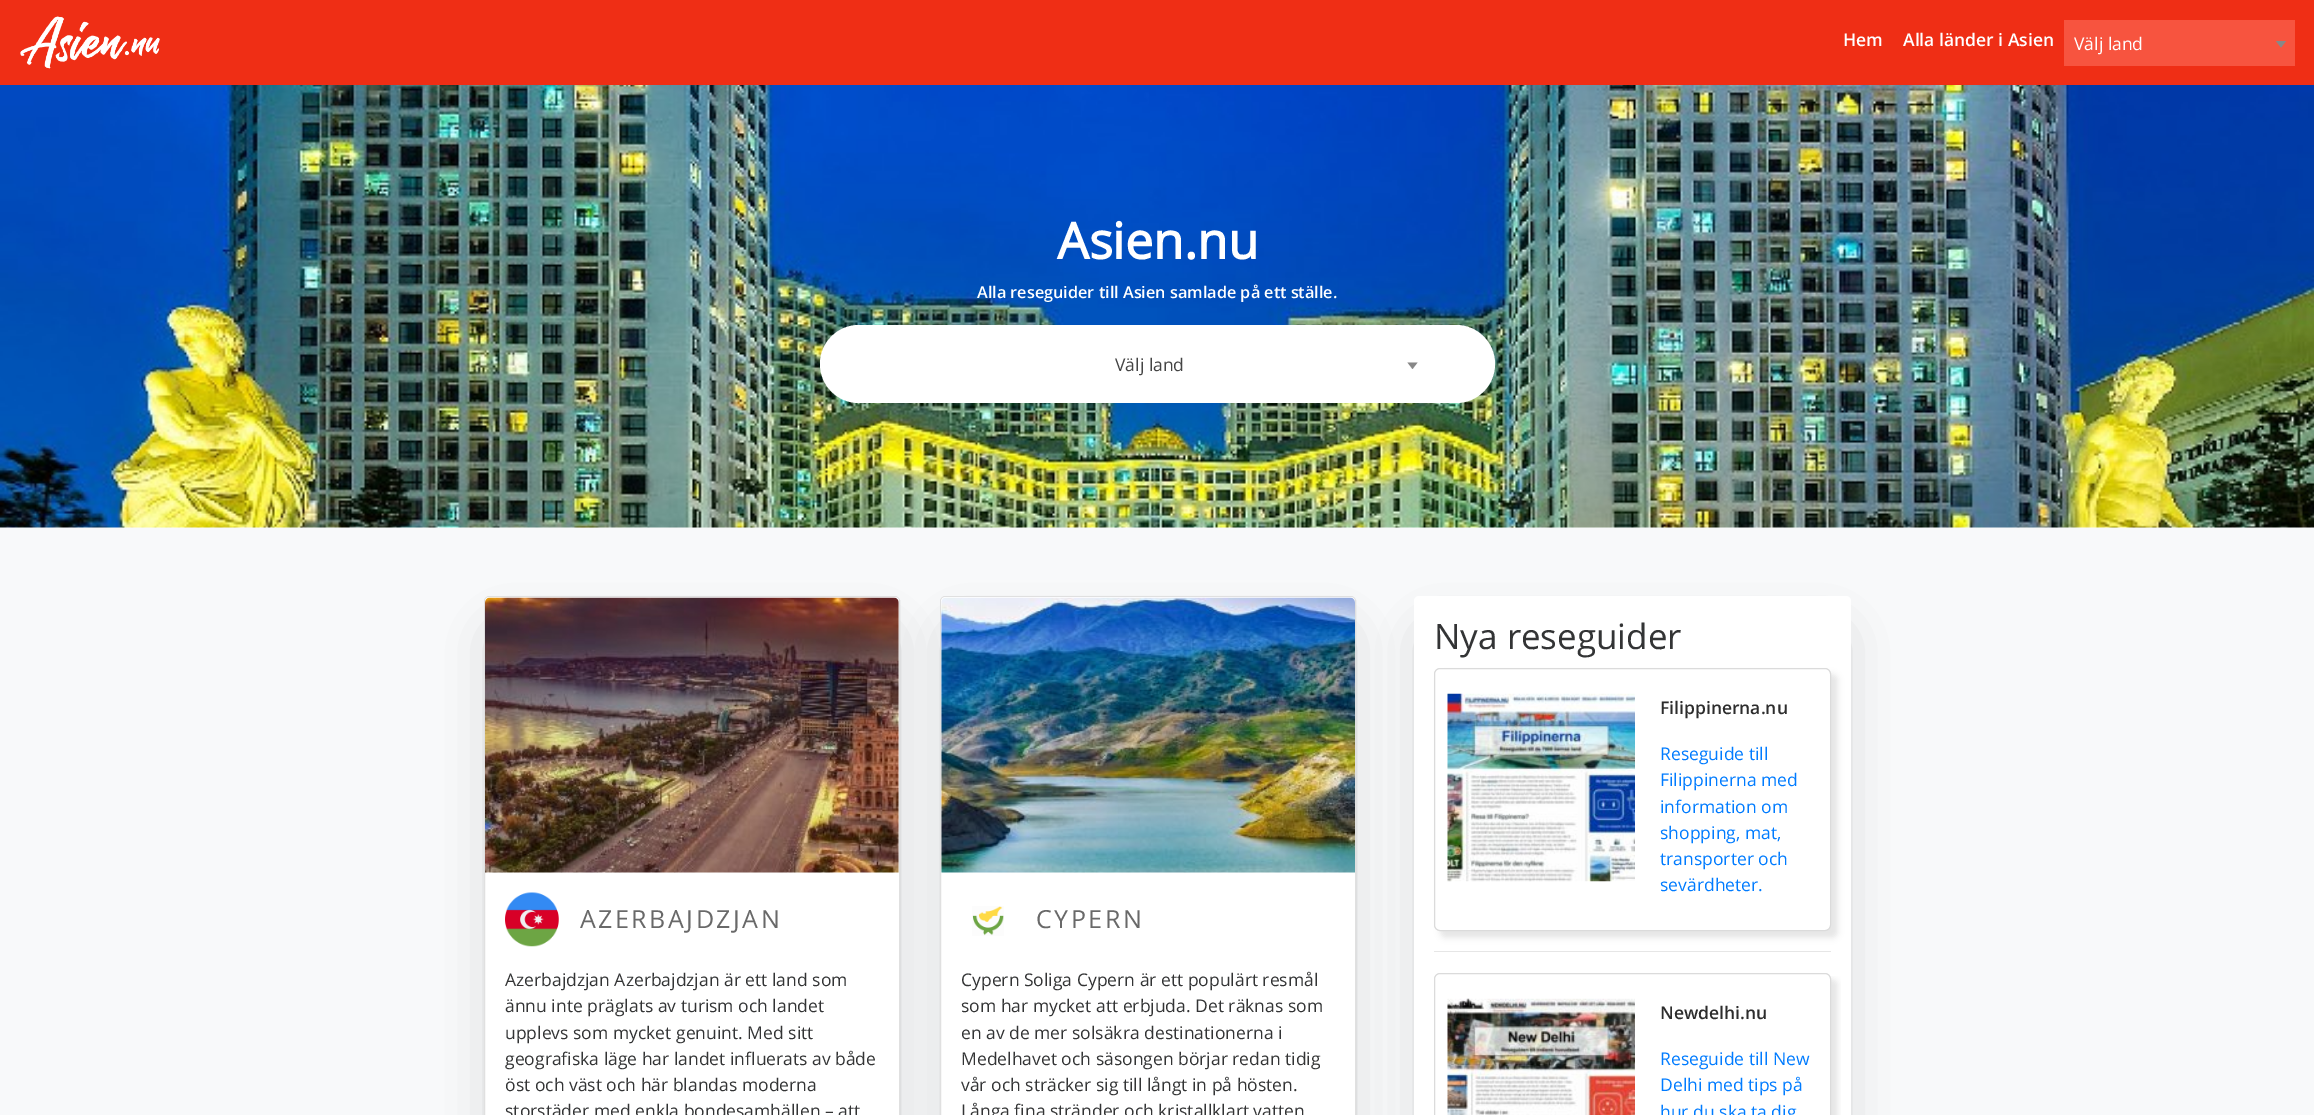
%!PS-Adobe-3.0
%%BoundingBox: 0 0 2314 1115
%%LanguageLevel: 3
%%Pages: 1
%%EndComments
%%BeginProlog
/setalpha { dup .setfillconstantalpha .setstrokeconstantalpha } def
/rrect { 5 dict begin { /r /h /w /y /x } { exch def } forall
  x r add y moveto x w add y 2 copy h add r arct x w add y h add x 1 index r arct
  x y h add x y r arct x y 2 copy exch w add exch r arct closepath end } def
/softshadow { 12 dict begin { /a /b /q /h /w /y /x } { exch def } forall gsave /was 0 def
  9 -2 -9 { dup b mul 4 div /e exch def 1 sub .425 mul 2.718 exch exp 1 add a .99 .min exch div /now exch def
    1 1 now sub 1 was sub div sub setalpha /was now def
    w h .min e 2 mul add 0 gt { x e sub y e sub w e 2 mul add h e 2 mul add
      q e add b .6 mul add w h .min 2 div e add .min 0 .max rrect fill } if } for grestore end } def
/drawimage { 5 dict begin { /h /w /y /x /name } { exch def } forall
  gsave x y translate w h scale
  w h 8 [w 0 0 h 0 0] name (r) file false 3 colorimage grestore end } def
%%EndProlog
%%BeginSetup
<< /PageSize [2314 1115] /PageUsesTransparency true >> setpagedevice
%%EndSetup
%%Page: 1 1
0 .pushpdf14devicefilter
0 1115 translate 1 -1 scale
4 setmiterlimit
0.973 0.976 0.98 setrgbcolor
0 0 2314 1115 rectfill
0.937 0.18 0.082 setrgbcolor
0 0 2314 85 rectfill
(images/1.raw) 20 16 140 53 drawimage
0.969 0.329 0.247 setrgbcolor
2064 20 231 46 rectfill
0.533 setgray
newpath 2276 41 moveto 2286 41 lineto 2281 47.5 lineto closepath fill
(images/2.raw) 0 85 2314 443 drawimage
1 setgray
820 325 675 78 39 rrect fill
0.533 setgray
newpath 1407.5 362.5 moveto 1417.5 362.5 lineto 1412.5 369 lineto closepath fill
0 setgray
501 639 382 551 0 25 0.25 softshadow
1 setgray
484 596 416 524 5 rrect fill
0.12 setalpha
0 setgray
484.5 596.5 415 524 4.5 rrect stroke
1 setalpha
(images/3.raw) 485 597 414 276 drawimage
(images/4.raw) 505 892 54 55 drawimage
958 639 381 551 0 25 0.25 softshadow
1 setgray
940 596 416 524 5 rrect fill
0.12 setalpha
0 setgray
940.5 596.5 415 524 4.5 rrect stroke
1 setalpha
(images/5.raw) 941 597 414 276 drawimage
(images/6.raw) 972 906 32 30 drawimage
1431 639 403 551 0 25 0.25 softshadow
1 setgray
1414 596 437 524 5 rrect fill
0.286 setgray
1440 674 398 264 6 3 0.14 softshadow
1 setgray
1434.5 668.5 396 262 5.5 rrect gsave fill grestore
0.859 setgray
stroke
(images/7.raw) 1447 693 188 189 drawimage
0.902 setgray
1434 951 397 1 rectfill
gsave
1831 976 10 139 rectclip
0.286 setgray
1440 979 398 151 6 3 0.14 softshadow
grestore
0.859 setgray
1434.5 973.5 396 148 5.5 rrect stroke
(images/8.raw) 1447 998 188 117 drawimage
/OpenSans-SemiBold [17.5 0 0 -17.5 0 0] selectfont
1 setgray
1843 46 moveto (Hem) show
1903 46 moveto (Alla länder i Asien) show
/OpenSans-Regular [17.5 0 0 -17.5 0 0] selectfont
2074 50 moveto (Välj land) show
/OpenSans-Bold [50 0 0 -50 0 0] selectfont
1057 259 moveto (Asien.nu) show
/OpenSans-SemiBold [16.25 0 0 -16.25 0 0] selectfont
977 298 moveto (Alla reseguider till Asien samlade på ett ställe.) show
/OpenSans-Regular [17.5 0 0 -17.5 0 0] selectfont
0.267 setgray
1115 371 moveto (Välj land) show
/OpenSans-Regular [25 0 0 -25 0 0] selectfont
0.412 setgray
580 928 moveto 2.5 0 (AZERBAJDZJAN) ashow
/OpenSans-Regular [17.5 0 0 -17.5 0 0] selectfont
0.2 0.204 0.208 setrgbcolor
505 986 moveto (Azerbajdzjan Azerbajdzjan är ett land som) show
505 1012 moveto (ännu inte präglats av turism och landet) show
505 1039 moveto (upplevs som mycket genuint. Med sitt) show
505 1065 moveto (geografiska läge har landet influerats av både) show
505 1091 moveto (öst och väst och här blandas moderna) show
505 1117 moveto (storstäder med enkla bondesamhällen – att) show
/OpenSans-Regular [25 0 0 -25 0 0] selectfont
0.412 setgray
1036 928 moveto 2.5 0 (CYPERN) ashow
/OpenSans-Regular [17.5 0 0 -17.5 0 0] selectfont
0.2 0.204 0.208 setrgbcolor
961 986 moveto (Cypern Soliga Cypern är ett populärt resmål) show
961 1012 moveto (som har mycket att erbjuda. Det räknas som) show
961 1039 moveto (en av de mer solsäkra destinationerna i) show
961 1065 moveto (Medelhavet och säsongen börjar redan tidig) show
961 1091 moveto (vår och sträcker sig till långt in på hösten.) show
961 1117 moveto (Långa fina stränder och kristallklart vatten) show
/OpenSans-Regular [35 0 0 -35 0 0] selectfont
1434 649 moveto (Nya reseguider) show
/OpenSans-SemiBold [17.5 0 0 -17.5 0 0] selectfont
0.176 setgray
1660 714 moveto (Filippinerna.nu) show
/OpenSans-Regular [17.5 0 0 -17.5 0 0] selectfont
0 0.482 1 setrgbcolor
1660 760 moveto (Reseguide till) show
1660 786 moveto (Filippinerna med) show
1660 813 moveto (information om) show
1660 839 moveto (shopping, mat,) show
1660 865 moveto (transporter och) show
1660 891 moveto (sevärdheter.) show
/OpenSans-SemiBold [17.5 0 0 -17.5 0 0] selectfont
0.176 setgray
1660 1019 moveto (Newdelhi.nu) show
/OpenSans-Regular [17.5 0 0 -17.5 0 0] selectfont
0 0.482 1 setrgbcolor
1660 1065 moveto (Reseguide till New) show
1660 1091 moveto (Delhi med tips på) show
1660 1118 moveto (hur du ska ta dig) show
.poppdf14devicefilter showpage
%%EOF
